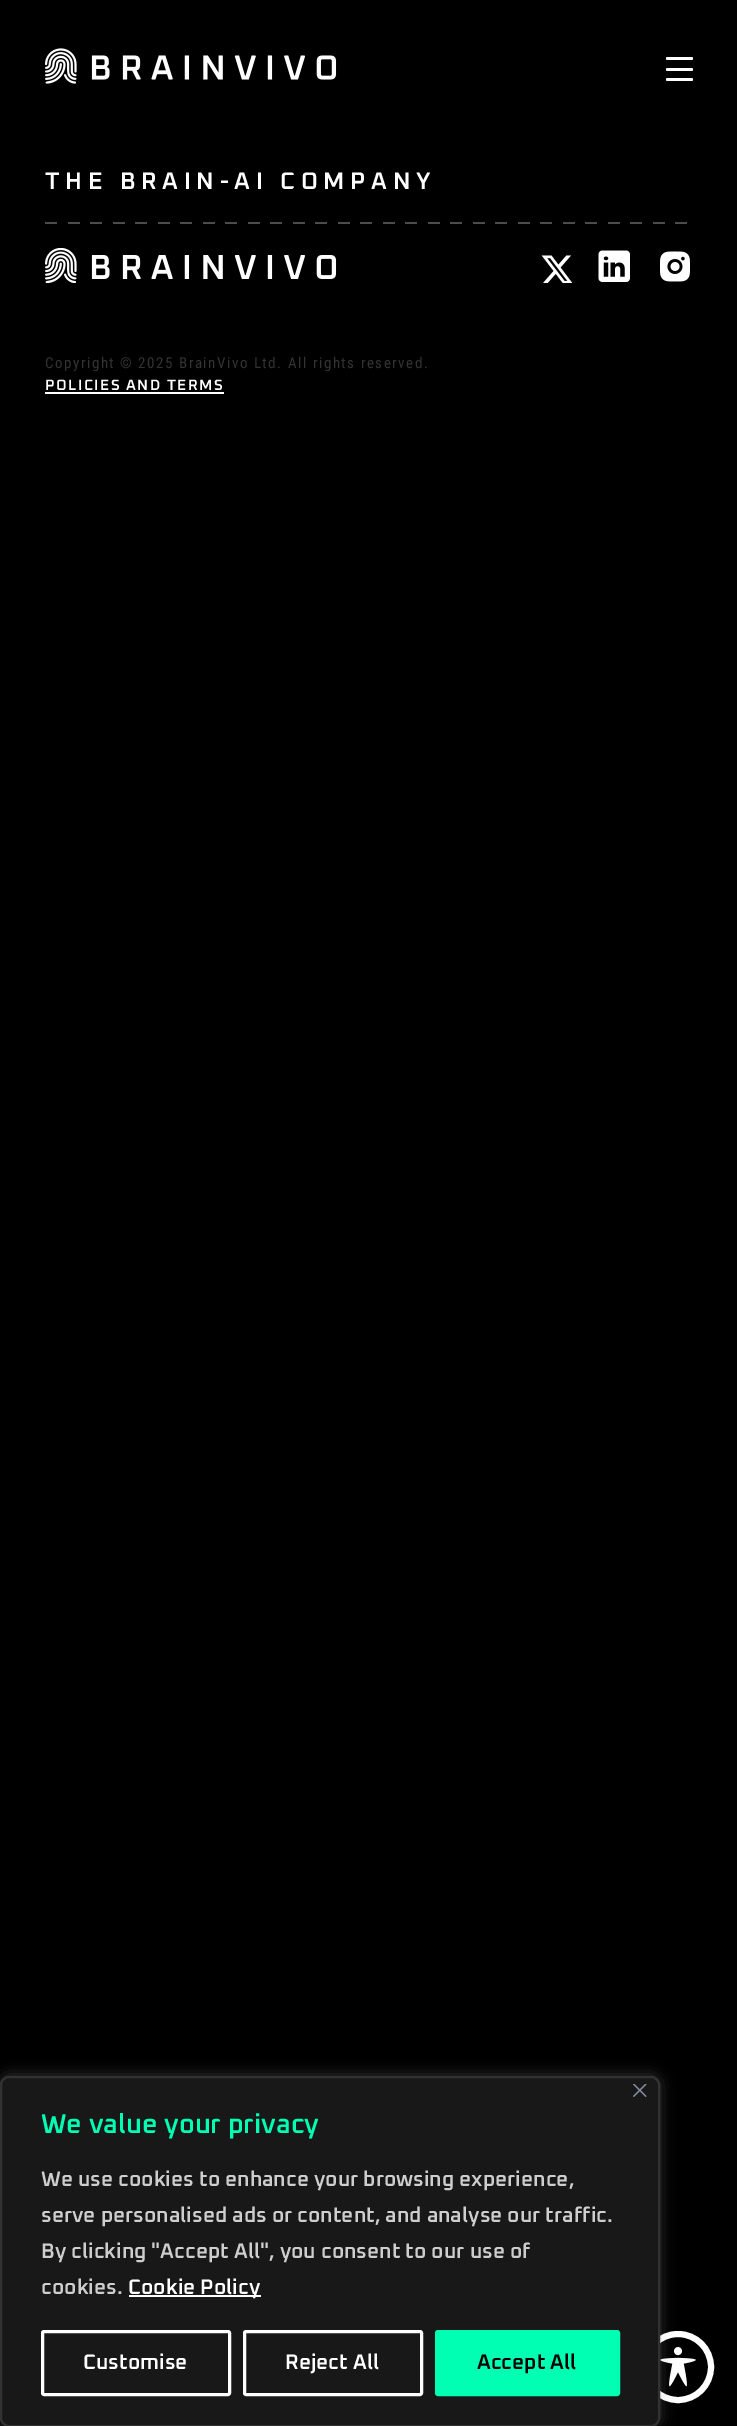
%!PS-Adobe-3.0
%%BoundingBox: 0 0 737 2426
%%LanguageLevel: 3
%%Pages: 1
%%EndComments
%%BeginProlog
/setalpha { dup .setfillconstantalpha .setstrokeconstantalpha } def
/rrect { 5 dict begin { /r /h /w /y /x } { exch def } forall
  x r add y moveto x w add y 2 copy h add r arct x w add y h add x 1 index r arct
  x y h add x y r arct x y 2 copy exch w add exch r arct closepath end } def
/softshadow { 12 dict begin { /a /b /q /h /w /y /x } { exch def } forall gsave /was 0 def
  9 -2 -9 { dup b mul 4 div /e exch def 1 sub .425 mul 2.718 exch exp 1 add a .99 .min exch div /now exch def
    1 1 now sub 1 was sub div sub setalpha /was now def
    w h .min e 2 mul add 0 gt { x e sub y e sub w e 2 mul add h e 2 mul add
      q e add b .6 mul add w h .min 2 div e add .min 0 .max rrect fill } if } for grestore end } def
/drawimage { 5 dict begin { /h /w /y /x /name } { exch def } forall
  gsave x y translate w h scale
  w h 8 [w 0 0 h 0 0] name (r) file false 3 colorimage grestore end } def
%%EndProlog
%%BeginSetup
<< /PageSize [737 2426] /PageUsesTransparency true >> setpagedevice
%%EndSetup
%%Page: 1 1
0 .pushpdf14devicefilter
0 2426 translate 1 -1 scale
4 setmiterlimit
0 setgray
0 0 737 2426 rectfill
(images/1.raw) 45 48 292 36 drawimage
1 setgray
666 68 27 3 1.5 rrect fill
666 57 27 3 1.5 rrect fill
666 78 27 3 1.5 rrect fill
(images/2.raw) 45 222 642 2 drawimage
(images/3.raw) 45 248 292 35 drawimage
(images/4.raw) 541 255 31 28 drawimage
(images/5.raw) 598 250 32 32 drawimage
(images/6.raw) 660 251 30 31 drawimage
45 392 179 2 rectfill
6 setlinewidth
newpath 678 2367 33 0 360 arc closepath stroke
(images/8.raw) 660 2347 36 40 drawimage
0.675 0.671 0.671 setrgbcolor
0 2075 660 351 9 7.5 0.3 softshadow
0.094 setgray
1 2077 658 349 8 rrect gsave fill grestore
0.196 setgray
2 setlinewidth
stroke
(images/7.raw) 633 2084 14 13 drawimage
1 setgray
129 2295 132 2 rectfill
3 setlinewidth
42.5 2331.5 187 63 1.5 rrect stroke
244.5 2331.5 177 63 1.5 rrect stroke
0 1 0.698 setrgbcolor
436.5 2331.5 182 63 1.5 rrect gsave fill grestore
stroke
/Oxanium-ExtraLight [24 0 0 -24 0 0] selectfont
1 setgray
45 189 moveto 5.75 0 (THE BRAIN-AI COMPANY) ashow
/RobotoCondensed-Regular [15 0 0 -15 0 0] selectfont
0.2 setgray
45 368 moveto 1.5 0 (Copyright © 2025 BrainVivo Ltd. All rights reserved.) ashow
/Oxanium-ExtraLight [15 0 0 -15 0 0] selectfont
1 setgray
45 390 moveto 1.5 0 (POLICIES AND TERMS) ashow
/Oxanium-ExtraLight [27 0 0 -27 0 0] selectfont
0 1 0.698 setrgbcolor
41 2133 moveto (We value your privacy) show
/Oxanium-ExtraLight [21 0 0 -21 0 0] selectfont
0.808 setgray
41 2186 moveto (We use cookies to enhance your browsing experience,) show
41 2222 moveto (serve personalised ads or content, and analyse our traffic.) show
41 2258 moveto (By clicking "Accept All", you consent to our use of) show
41 2294 moveto (cookies.) show
1 setgray
128 2294 moveto (Cookie Policy) show
83 2369 moveto (Customise) show
285 2369 moveto (Reject All) show
0 setgray
477 2369 moveto (Accept All) show
.poppdf14devicefilter showpage
%%EOF
